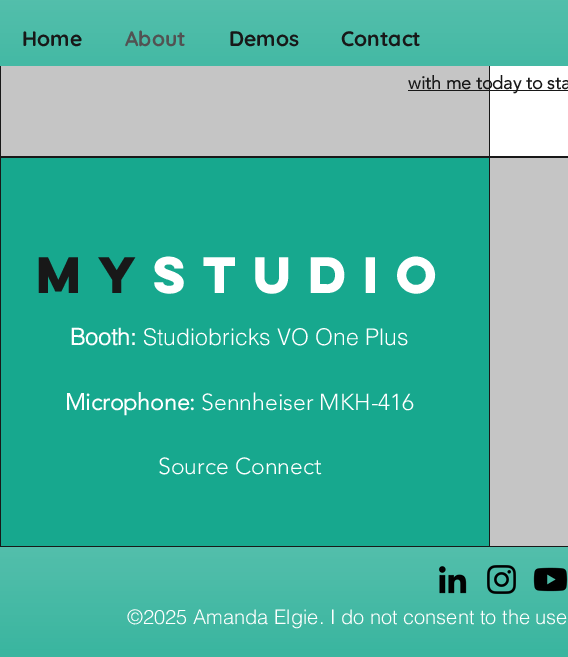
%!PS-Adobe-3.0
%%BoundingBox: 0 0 568 657
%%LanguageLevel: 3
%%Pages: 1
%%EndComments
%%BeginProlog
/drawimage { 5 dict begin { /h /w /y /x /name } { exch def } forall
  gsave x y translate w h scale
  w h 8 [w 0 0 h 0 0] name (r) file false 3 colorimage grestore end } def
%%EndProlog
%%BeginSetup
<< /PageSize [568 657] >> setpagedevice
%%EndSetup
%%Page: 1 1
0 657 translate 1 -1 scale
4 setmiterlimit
0.094 setgray
0 0 568 657 rectfill
0.09 0.659 0.557 setrgbcolor
0 0 568 66 rectfill
(images/1.raw) 0 0 568 66 drawimage
0.773 setgray
1 66 488 90 rectfill
1 setgray
490 66 78 90 rectfill
0.094 setgray
408 90 160 1 rectfill
0.09 0.659 0.557 setrgbcolor
1 158 488 388 rectfill
0.773 setgray
490 158 78 388 rectfill
0.09 0.659 0.557 setrgbcolor
0 547 568 110 rectfill
(images/2.raw) 0 547 568 110 drawimage
(images/3.raw) 438 566 29 28 drawimage
(images/4.raw) 487 565 29 29 drawimage
(images/5.raw) 533 567 35 25 drawimage
/Quicksand-Bold [21 0 0 -21 0 0] selectfont
0.094 setgray
22 46 moveto (Home) show
0.322 setgray
125 46 moveto (About) show
0.094 setgray
229 46 moveto (Demos) show
341 46 moveto (Contact) show
/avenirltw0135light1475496-Bold [18 0 0 -18 0 0] selectfont
408 89 moveto (with me today to sta) show
/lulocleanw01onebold-Bold [46 0 0 -46 0 0] selectfont
36 293 moveto 7 0 (My) ashow
1 setgray
153 293 moveto 7 0 (STUDIo) ashow
/helvetica-Bold [23 0 0 -23 0 0] selectfont
70 345 moveto (Booth:) show
/helvetica-Light [23 0 0 -23 0 0] selectfont
143 345 moveto (Studiobricks VO One Plus) show
/avenirltw0135light1475496-Bold [23 0 0 -23 0 0] selectfont
65 410 moveto (Microphone:) show
/avenirltw0135light1475496-Light [23 0 0 -23 0 0] selectfont
201 410 moveto (Sennheiser MKH-416) show
158 474 moveto (Source Connect) show
/helvetica-Light [20 0 0 -20 0 0] selectfont
127 624 moveto (©2025 Amanda Elgie. I do not consent to the use) show
showpage
%%EOF
